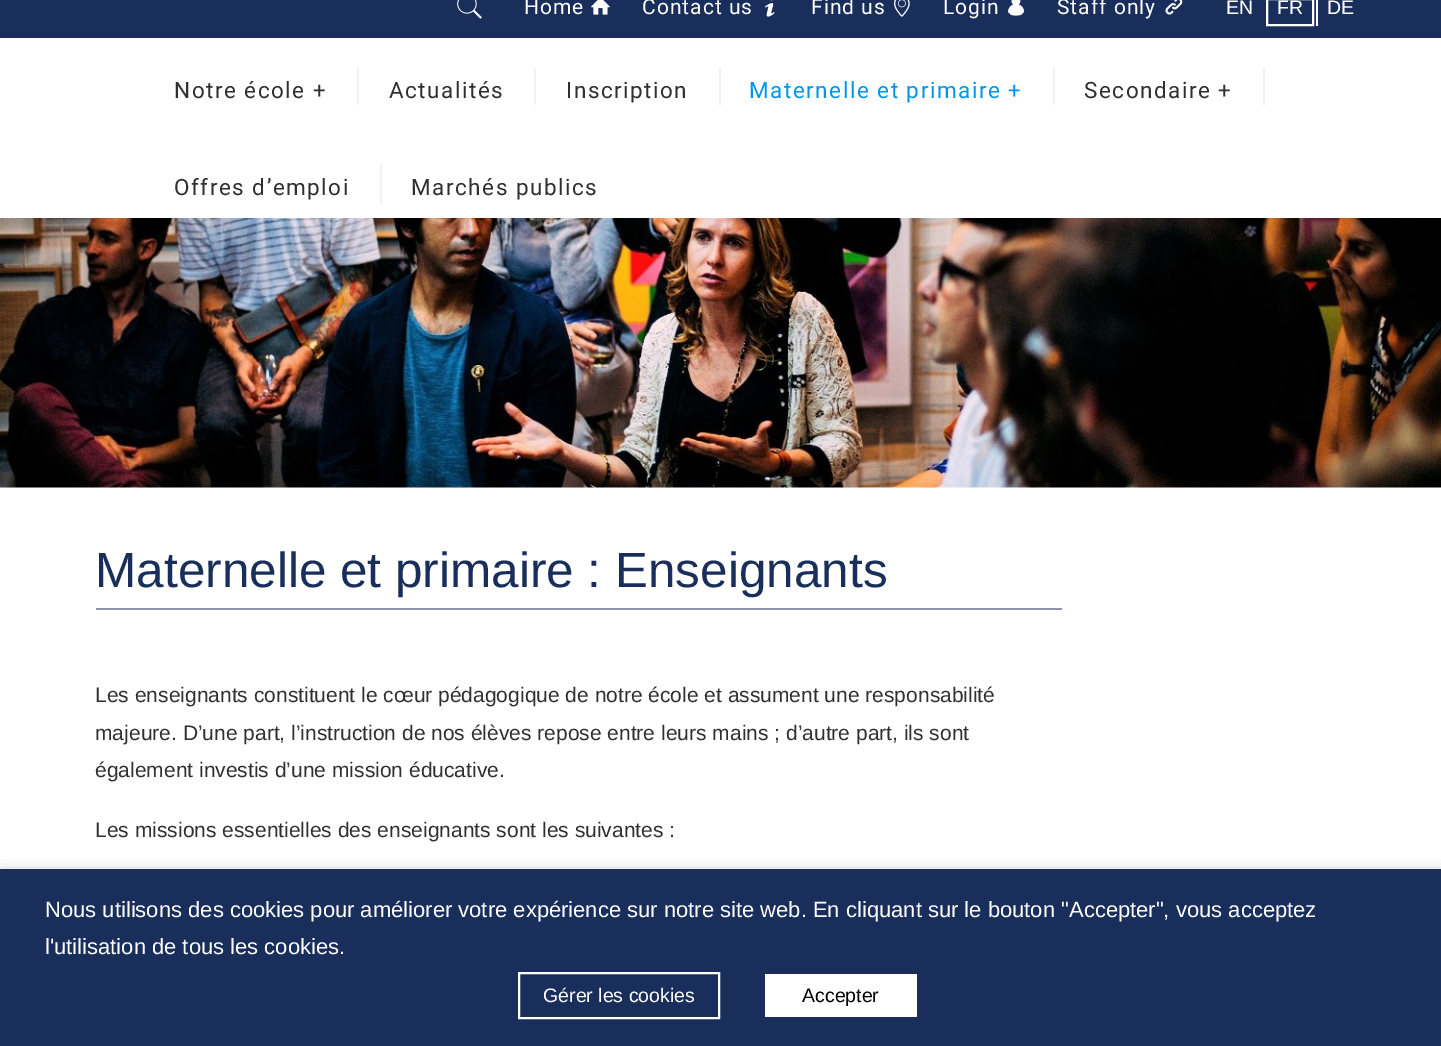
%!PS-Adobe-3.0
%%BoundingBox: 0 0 1441 1046
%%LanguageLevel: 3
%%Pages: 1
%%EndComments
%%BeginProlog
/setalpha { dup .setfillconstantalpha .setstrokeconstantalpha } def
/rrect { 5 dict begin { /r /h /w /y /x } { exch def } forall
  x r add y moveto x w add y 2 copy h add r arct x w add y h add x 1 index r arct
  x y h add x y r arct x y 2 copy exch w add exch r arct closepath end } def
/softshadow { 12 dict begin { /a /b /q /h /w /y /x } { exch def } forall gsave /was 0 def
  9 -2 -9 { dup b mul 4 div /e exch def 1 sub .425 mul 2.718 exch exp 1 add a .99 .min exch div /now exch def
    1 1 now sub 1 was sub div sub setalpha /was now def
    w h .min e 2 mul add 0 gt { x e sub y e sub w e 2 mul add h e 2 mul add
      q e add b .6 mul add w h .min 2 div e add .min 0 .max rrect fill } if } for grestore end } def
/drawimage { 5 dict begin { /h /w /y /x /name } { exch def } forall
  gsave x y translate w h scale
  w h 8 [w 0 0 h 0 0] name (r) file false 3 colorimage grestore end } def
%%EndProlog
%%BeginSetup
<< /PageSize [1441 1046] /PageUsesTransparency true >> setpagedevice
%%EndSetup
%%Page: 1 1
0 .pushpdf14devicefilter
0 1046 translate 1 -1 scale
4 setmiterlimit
1 setgray
0 0 1441 1046 rectfill
0.098 0.18 0.357 setrgbcolor
0 0 1441 38 rectfill
(images/1.raw) 457 0 25 19 drawimage
(images/2.raw) 591 0 19 15 drawimage
(images/3.raw) 765 0 10 17 drawimage
(images/4.raw) 894 0 16 17 drawimage
(images/5.raw) 1008 0 16 16 drawimage
(images/6.raw) 1165 0 18 15 drawimage
1 setgray
2 setlinewidth
1267 -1 46 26 rectstroke
1316 0 2 26 rectfill
0.949 setgray
357 68 2 37 rectfill
534 68 2 37 rectfill
719 68 2 37 rectfill
1053 68 2 37 rectfill
1263 68 2 37 rectfill
380 165 2 38 rectfill
(images/7.raw) 0 218 1441 270 drawimage
0.549 0.592 0.678 setrgbcolor
96 608 966 2 rectfill
0 setgray
0 876 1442 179 0 7.5 0.5 softshadow
0.098 0.18 0.357 setrgbcolor
0 869 1441 177 rectfill
1 setgray
519 973 200 45 rectstroke
765 974 152 43 rectfill
/Roboto-Regular [21 0 0 -21 0 0] selectfont
524 14 moveto 1 0 (Home) ashow
642 14 moveto 1 0 (Contact us) ashow
811 14 moveto 1 0 (Find us) ashow
943 14 moveto 1 0 (Login) ashow
1057 14 moveto 1 0 (Staff only) ashow
/LiberationSans-Regular [19.5 0 0 -19.5 0 0] selectfont
1226 14 moveto (EN) show
1277 14 moveto (FR) show
1327 14 moveto (DE) show
/Roboto-Regular [22.5 0 0 -22.5 0 0] selectfont
0.188 setgray
174 98 moveto 1.5 0 (Notre école +) ashow
389 98 moveto 1.5 0 (Actualités) ashow
566 98 moveto 1.5 0 (Inscription) ashow
0 0.584 0.922 setrgbcolor
749 98 moveto 1.5 0 (Maternelle et primaire +) ashow
0.188 setgray
1084 98 moveto 1.5 0 (Secondaire +) ashow
174 195 moveto 1.5 0 (Offres d’emploi) ashow
411 195 moveto 1.5 0 (Marchés publics) ashow
/LiberationSans-Regular [49.5 0 0 -49.5 0 0] selectfont
0.098 0.18 0.357 setrgbcolor
95 587 moveto (Maternelle et primaire : Enseignants) show
/LiberationSans-Regular [21 0 0 -21 0 0] selectfont
0.188 setgray
95 702 moveto (Les enseignants constituent le cœur pédagogique de notre école et assument une responsabilité) show
95 740 moveto (majeure. D’une part, l’instruction de nos élèves repose entre leurs mains ; d’autre part, ils sont) show
95 777 moveto (également investis d’une mission éducative.) show
95 837 moveto (Les missions essentielles des enseignants sont les suivantes :) show
/LiberationSans-Regular [22 0 0 -22 0 0] selectfont
1 setgray
45 917 moveto (Nous utilisons des cookies pour améliorer votre expérience sur notre site web. En cliquant sur le bouton "Accepter", vous acceptez) show
45 954 moveto (l'utilisation de tous les cookies.) show
/LiberationSans-Regular [19.5 0 0 -19.5 0 0] selectfont
543 1002 moveto (Gérer les cookies) show
0 setgray
802 1002 moveto (Accepter) show
.poppdf14devicefilter showpage
%%EOF
